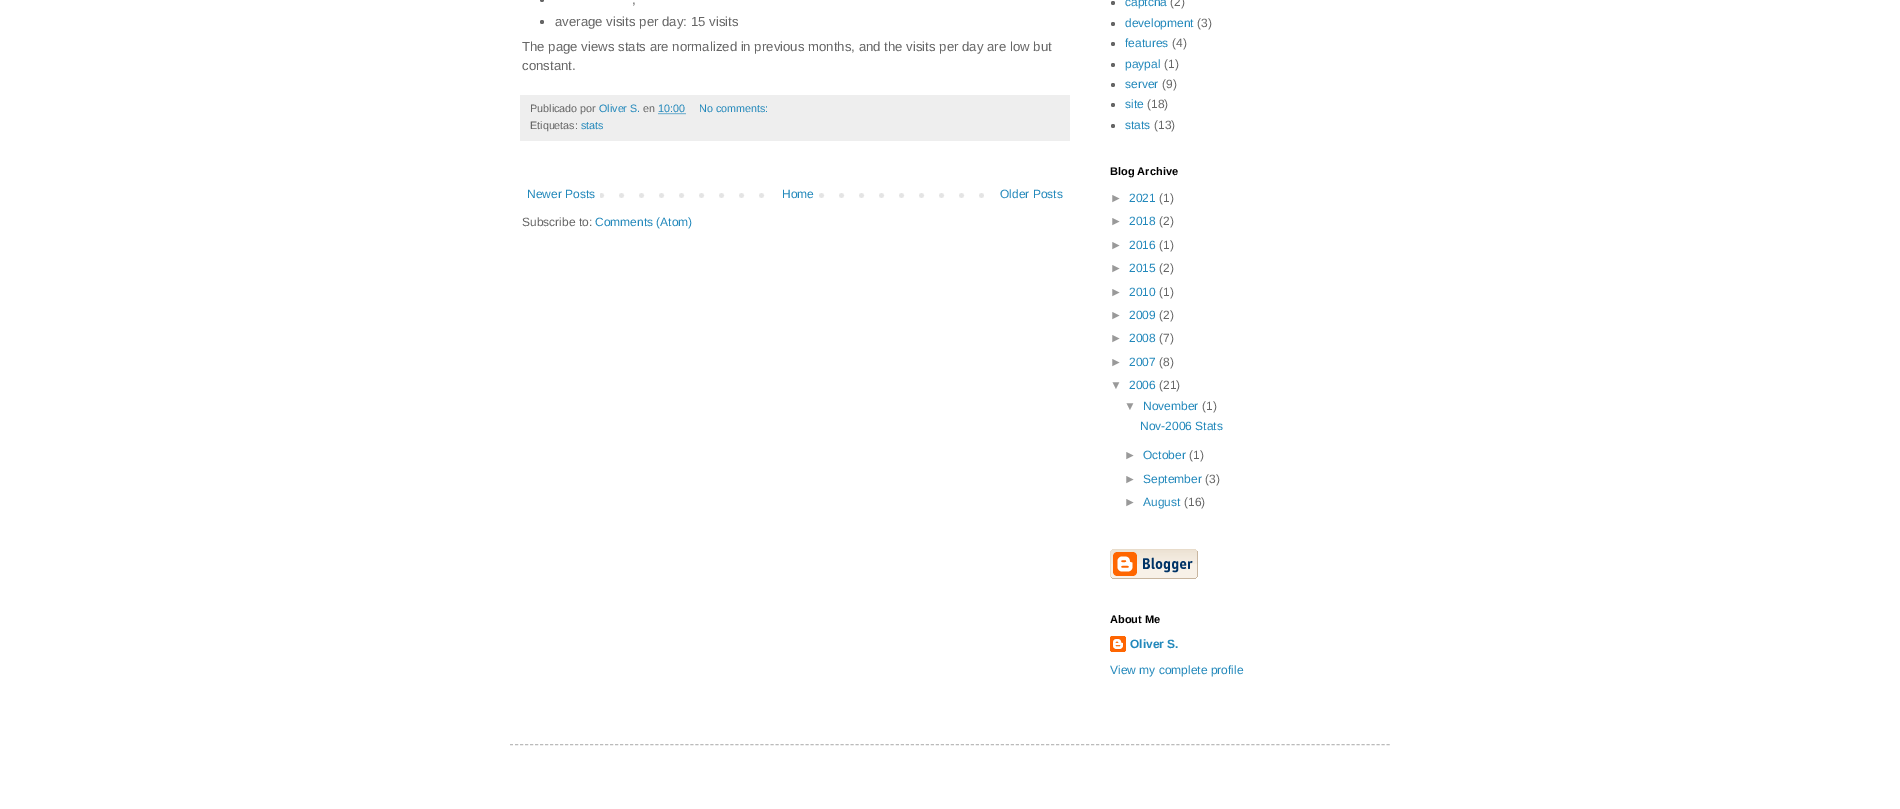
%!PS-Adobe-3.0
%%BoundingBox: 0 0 1900 809
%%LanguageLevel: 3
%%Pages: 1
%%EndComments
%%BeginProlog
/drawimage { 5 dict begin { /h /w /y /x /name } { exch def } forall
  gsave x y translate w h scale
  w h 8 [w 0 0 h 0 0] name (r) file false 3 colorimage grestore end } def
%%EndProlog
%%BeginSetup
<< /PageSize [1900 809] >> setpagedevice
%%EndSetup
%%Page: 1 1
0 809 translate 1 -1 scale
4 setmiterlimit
1 setgray
0 0 1900 809 rectfill
0.4 setgray
newpath 542 0 2 0 360 arc closepath fill
newpath 542 22 2 0 360 arc closepath fill
0.933 setgray
520 95 550 46 rectfill
0.133 0.533 0.733 setrgbcolor
[1 1] 0 setdash
newpath 658.5 113.5 moveto 685.5 113.5 lineto stroke
(images/1.raw) 600 193 384 5 drawimage
1 setgray
779 193 26 5 rectfill
0.4 setgray
newpath 1113 3 2 0 360 arc closepath fill
newpath 1113 24 2 0 360 arc closepath fill
newpath 1113 44 2 0 360 arc closepath fill
newpath 1113 65 2 0 360 arc closepath fill
newpath 1113 85 2 0 360 arc closepath fill
newpath 1113 105 2 0 360 arc closepath fill
newpath 1113 126 2 0 360 arc closepath fill
(images/2.raw) 1110 549 88 30 drawimage
(images/3.raw) 1110 636 16 16 drawimage
0.733 setgray
[3 2.01] 0 setdash
newpath 510 744.5 moveto 1390 744.5 lineto stroke
/LiberationSans-Regular [13.2 0 0 -13.2 0 0] selectfont
0.4 setgray
632 4 moveto (,) show
555 26 moveto (average visits per day: 15 visits) show
522 51 moveto (The page views stats are normalized in previous months, and the visits per day are low but) show
522 70 moveto (constant.) show
/LiberationSans-Regular [10.75 0 0 -10.75 0 0] selectfont
530 112 moveto (Publicado por) show
0.133 0.533 0.733 setrgbcolor
599 112 moveto (Oliver S.) show
0.4 setgray
643 112 moveto (en) show
0.133 0.533 0.733 setrgbcolor
658 112 moveto (10:00) show
699 112 moveto (No comments:) show
0.4 setgray
530 129 moveto (Etiquetas:) show
0.133 0.533 0.733 setrgbcolor
581 129 moveto (stats) show
/LiberationSans-Regular [12 0 0 -12 0 0] selectfont
527 198 moveto (Newer Posts) show
782 198 moveto (Home) show
1000 198 moveto (Older Posts) show
0.4 setgray
522 226 moveto (Subscribe to:) show
0.133 0.533 0.733 setrgbcolor
595 226 moveto (Comments \(Atom\)) show
1125 6 moveto (captcha) show
0.4 setgray
1170 6 moveto (\(2\)) show
0.133 0.533 0.733 setrgbcolor
1125 27 moveto (development) show
0.4 setgray
1197 27 moveto (\(3\)) show
0.133 0.533 0.733 setrgbcolor
1125 47 moveto (features) show
0.4 setgray
1172 47 moveto (\(4\)) show
0.133 0.533 0.733 setrgbcolor
1125 68 moveto (paypal) show
0.4 setgray
1164 68 moveto (\(1\)) show
0.133 0.533 0.733 setrgbcolor
1125 88 moveto (server) show
0.4 setgray
1162 88 moveto (\(9\)) show
0.133 0.533 0.733 setrgbcolor
1125 108 moveto (site) show
0.4 setgray
1147 108 moveto (\(18\)) show
0.133 0.533 0.733 setrgbcolor
1125 129 moveto (stats) show
0.4 setgray
1154 129 moveto (\(13\)) show
/LiberationSans-Bold [11 0 0 -11 0 0] selectfont
0 setgray
1110 175 moveto (Blog Archive) show
/LiberationSans-Regular [12 0 0 -12 0 0] selectfont
0.6 setgray
1110 202 moveto (►) show
0.133 0.533 0.733 setrgbcolor
1129 202 moveto (2021) show
0.4 setgray
1159 202 moveto (\(1\)) show
0.6 setgray
1110 225 moveto (►) show
0.133 0.533 0.733 setrgbcolor
1129 225 moveto (2018) show
0.4 setgray
1159 225 moveto (\(2\)) show
0.6 setgray
1110 249 moveto (►) show
0.133 0.533 0.733 setrgbcolor
1129 249 moveto (2016) show
0.4 setgray
1159 249 moveto (\(1\)) show
0.6 setgray
1110 272 moveto (►) show
0.133 0.533 0.733 setrgbcolor
1129 272 moveto (2015) show
0.4 setgray
1159 272 moveto (\(2\)) show
0.6 setgray
1110 296 moveto (►) show
0.133 0.533 0.733 setrgbcolor
1129 296 moveto (2010) show
0.4 setgray
1159 296 moveto (\(1\)) show
0.6 setgray
1110 319 moveto (►) show
0.133 0.533 0.733 setrgbcolor
1129 319 moveto (2009) show
0.4 setgray
1159 319 moveto (\(2\)) show
0.6 setgray
1110 342 moveto (►) show
0.133 0.533 0.733 setrgbcolor
1129 342 moveto (2008) show
0.4 setgray
1159 342 moveto (\(7\)) show
0.6 setgray
1110 366 moveto (►) show
0.133 0.533 0.733 setrgbcolor
1129 366 moveto (2007) show
0.4 setgray
1159 366 moveto (\(8\)) show
0.6 setgray
1110 389 moveto (▼) show
0.133 0.533 0.733 setrgbcolor
1129 389 moveto (2006) show
0.4 setgray
1159 389 moveto (\(21\)) show
0.6 setgray
1124 410 moveto (▼) show
0.133 0.533 0.733 setrgbcolor
1143 410 moveto (November) show
0.4 setgray
1202 410 moveto (\(1\)) show
0.133 0.533 0.733 setrgbcolor
1140 430 moveto (Nov-2006 Stats) show
0.6 setgray
1124 459 moveto (►) show
0.133 0.533 0.733 setrgbcolor
1143 459 moveto (October) show
0.4 setgray
1189 459 moveto (\(1\)) show
0.6 setgray
1124 483 moveto (►) show
0.133 0.533 0.733 setrgbcolor
1143 483 moveto (September) show
0.4 setgray
1205 483 moveto (\(3\)) show
0.6 setgray
1124 506 moveto (►) show
0.133 0.533 0.733 setrgbcolor
1143 506 moveto (August) show
0.4 setgray
1184 506 moveto (\(16\)) show
/LiberationSans-Bold [11 0 0 -11 0 0] selectfont
0 setgray
1110 623 moveto (About Me) show
/LiberationSans-Bold [12 0 0 -12 0 0] selectfont
0.133 0.533 0.733 setrgbcolor
1130 648 moveto (Oliver S.) show
/LiberationSans-Regular [12 0 0 -12 0 0] selectfont
1110 674 moveto (View my complete profile) show
showpage
%%EOF
